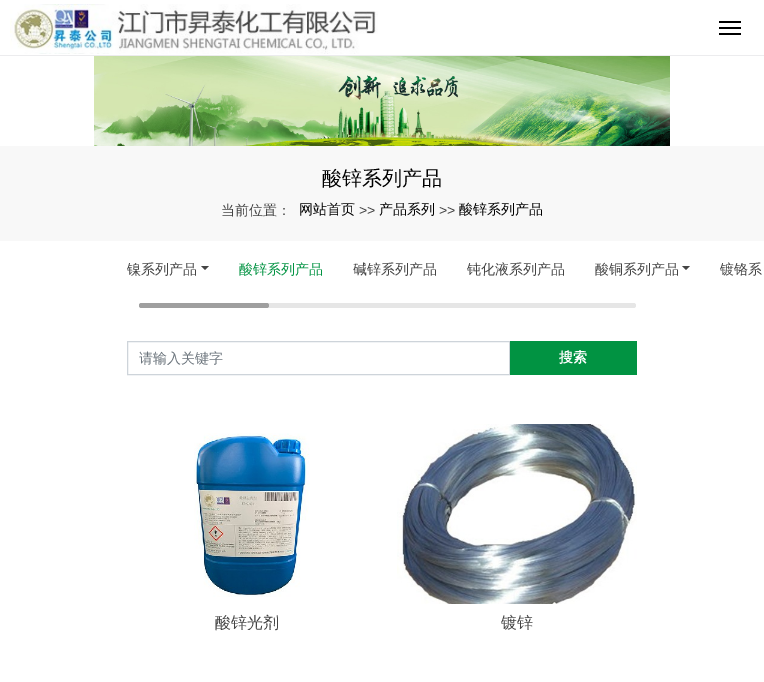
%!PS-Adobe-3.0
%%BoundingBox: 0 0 764 682
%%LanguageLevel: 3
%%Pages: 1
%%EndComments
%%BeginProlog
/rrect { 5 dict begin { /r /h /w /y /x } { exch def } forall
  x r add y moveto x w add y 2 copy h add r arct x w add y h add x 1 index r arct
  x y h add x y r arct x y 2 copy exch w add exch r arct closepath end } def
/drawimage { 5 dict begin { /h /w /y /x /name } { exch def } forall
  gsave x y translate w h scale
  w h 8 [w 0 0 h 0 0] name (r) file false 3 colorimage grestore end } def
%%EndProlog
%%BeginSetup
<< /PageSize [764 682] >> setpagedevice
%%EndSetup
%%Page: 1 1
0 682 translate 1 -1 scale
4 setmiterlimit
1 setgray
0 0 764 682 rectfill
0.925 0.925 0.933 setrgbcolor
0 55 764 1 rectfill
(images/1.raw) 10 4 368 50 drawimage
0 setgray
719 27 22 2 rectfill
719 21 22 2 rectfill
719 33 22 2 rectfill
(images/2.raw) 94 56 576 90 drawimage
0.973 setgray
0 146 764 95 rectfill
0.267 setgray
newpath 201 266 moveto 209 266 lineto 205 270 lineto closepath fill
newpath 682 266 moveto 690 266 lineto 686 270 lineto closepath fill
0.902 setgray
139 303 497 5 2.5 rrect fill
0.624 setgray
139 303 130 5 2.5 rrect fill
0.808 0.831 0.855 setrgbcolor
127.5 341.5 382 33 rectstroke
0.004 0.576 0.259 setrgbcolor
510 341 127 34 rectfill
(images/3.raw) 194 433 116 164 drawimage
(images/4.raw) 397 424 240 180 drawimage
/WenQuanYiZenHei-Medium [20 0 0 -20 0 0] selectfont
0 setgray
322 185 moveto (酸锌系列产品) show
/WenQuanYiZenHei-Medium [14 0 0 -14 0 0] selectfont
0.267 setgray
221 215 moveto (当前位置：) show
0 setgray
299 214 moveto (网站首页) show
/LiberationSans-Regular [14 0 0 -14 0 0] selectfont
0.267 setgray
359 215 moveto (>>) show
/WenQuanYiZenHei-Medium [14 0 0 -14 0 0] selectfont
0 setgray
379 214 moveto (产品系列) show
/LiberationSans-Regular [14 0 0 -14 0 0] selectfont
0.267 setgray
439 215 moveto (>>) show
/WenQuanYiZenHei-Medium [14 0 0 -14 0 0] selectfont
0 setgray
459 214 moveto (酸锌系列产品) show
0.267 setgray
127 274 moveto (镍系列产品) show
0.004 0.576 0.259 setrgbcolor
239 274 moveto (酸锌系列产品) show
0.267 setgray
353 274 moveto (碱锌系列产品) show
467 274 moveto (钝化液系列产品) show
595 274 moveto (酸铜系列产品) show
720 274 moveto (镀铬系) show
0.424 0.459 0.49 setrgbcolor
139 363 moveto (请输入关键字) show
/WenQuanYiZenHei-Bold [14 0 0 -14 0 0] selectfont
1 setgray
559 362 moveto (搜索) show
/WenQuanYiZenHei-Medium [16 0 0 -16 0 0] selectfont
0.267 setgray
215 628 moveto (酸锌光剂) show
501 628 moveto (镀锌) show
showpage
%%EOF
